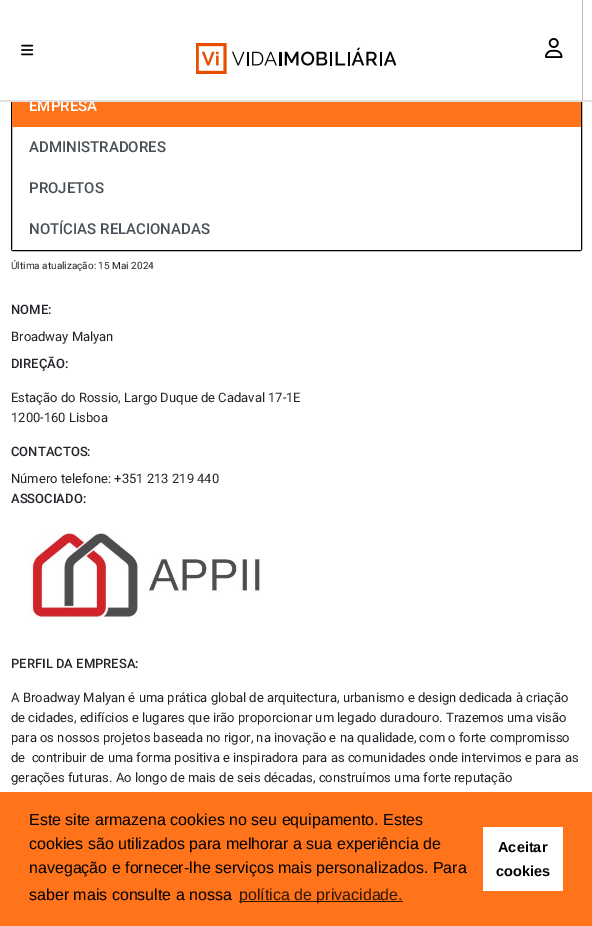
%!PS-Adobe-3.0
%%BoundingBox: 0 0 592 926
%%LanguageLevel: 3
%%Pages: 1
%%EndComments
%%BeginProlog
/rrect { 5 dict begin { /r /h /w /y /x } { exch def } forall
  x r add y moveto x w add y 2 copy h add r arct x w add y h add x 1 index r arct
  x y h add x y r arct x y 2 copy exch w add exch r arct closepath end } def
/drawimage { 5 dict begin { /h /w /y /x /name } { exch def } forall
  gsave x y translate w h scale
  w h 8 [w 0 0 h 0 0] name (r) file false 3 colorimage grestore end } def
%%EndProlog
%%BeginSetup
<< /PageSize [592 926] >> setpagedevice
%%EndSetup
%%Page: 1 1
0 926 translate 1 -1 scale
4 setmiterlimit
1 setgray
0 0 592 926 rectfill
0 setgray
11.5 -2.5 570 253 1.5 rrect stroke
1 setgray
11 0 571 100 rectfill
(images/1.raw) 21 44 13 12 drawimage
(images/2.raw) 196 43 200 31 drawimage
(images/3.raw) 545 38 18 20 drawimage
1 0.451 0.106 setrgbcolor
12 102 569 25 rectfill
1 setgray
12 249 569 1 rectfill
(images/4.raw) 29 530 232 94 drawimage
1 0.451 0.106 setrgbcolor
0 792 592 134 rectfill
0.2 0.09 0.02 setrgbcolor
239 901 164 1 rectfill
1 setgray
483 827 80 64 rectfill
/Roboto-Medium [15 0 0 -15 0 0] selectfont
29 111 moveto (EMPRESA) show
0.878 setgray
0 100 592 2 rectfill
0.286 0.314 0.341 setrgbcolor
29 152 moveto (ADMINISTRADORES) show
29 193 moveto (PROJETOS) show
29 234 moveto (NOTÍCIAS RELACIONADAS) show
/Roboto-Regular [10 0 0 -10 0 0] selectfont
0.129 0.145 0.161 setrgbcolor
11 269 moveto (Última atualização: 15 Mai 2024) show
/Roboto-Medium [13 0 0 -13 0 0] selectfont
11 314 moveto (NOME:) show
/Roboto-Regular [13 0 0 -13 0 0] selectfont
11 341 moveto (Broadway Malyan) show
/Roboto-Medium [13 0 0 -13 0 0] selectfont
11 368 moveto (DIREÇÃO:) show
/Roboto-Regular [13 0 0 -13 0 0] selectfont
11 402 moveto (Estação do Rossio, Largo Duque de Cadaval 17-1E) show
11 422 moveto (1200-160 Lisboa) show
/Roboto-Medium [13 0 0 -13 0 0] selectfont
11 456 moveto (CONTACTOS:) show
/Roboto-Regular [13 0 0 -13 0 0] selectfont
11 483 moveto (Número telefone: +351 213 219 440) show
/Roboto-Medium [13 0 0 -13 0 0] selectfont
11 503 moveto (ASSOCIADO:) show
11 668 moveto (PERFIL DA EMPRESA:) show
/Roboto-Regular [13 0 0 -13 0 0] selectfont
11 702 moveto (A Broadway Malyan é uma prática global de arquitectura, urbanismo e design dedicada à criação) show
11 722 moveto (de cidades, edifícios e lugares que irão proporcionar um legado duradouro. Trazemos uma visão) show
11 742 moveto (para os nossos projetos baseada no rigor, na inovação e na qualidade, com o forte compromisso) show
11 762 moveto (de  contribuir de uma forma positiva e inspiradora para as comunidades onde intervimos e para as) show
11 782 moveto (gerações futuras. Ao longo de mais de seis décadas, construímos uma forte reputação) show
/LiberationSans-Regular [16 0 0 -16 0 0] selectfont
0 setgray
29 825 moveto (Este site armazena cookies no seu equipamento. Estes) show
29 849 moveto (cookies são utilizados para melhorar a sua experiência de) show
29 873 moveto (navegação e fornecer-lhe serviços mais personalizados. Para) show
29 900 moveto (saber mais consulte a nossa) show
0.2 0.09 0.02 setrgbcolor
239 900 moveto (política de privacidade.) show
/LiberationSans-Bold [14.5 0 0 -14.5 0 0] selectfont
0 setgray
498 852 moveto (Aceitar) show
496 876 moveto (cookies) show
showpage
%%EOF
